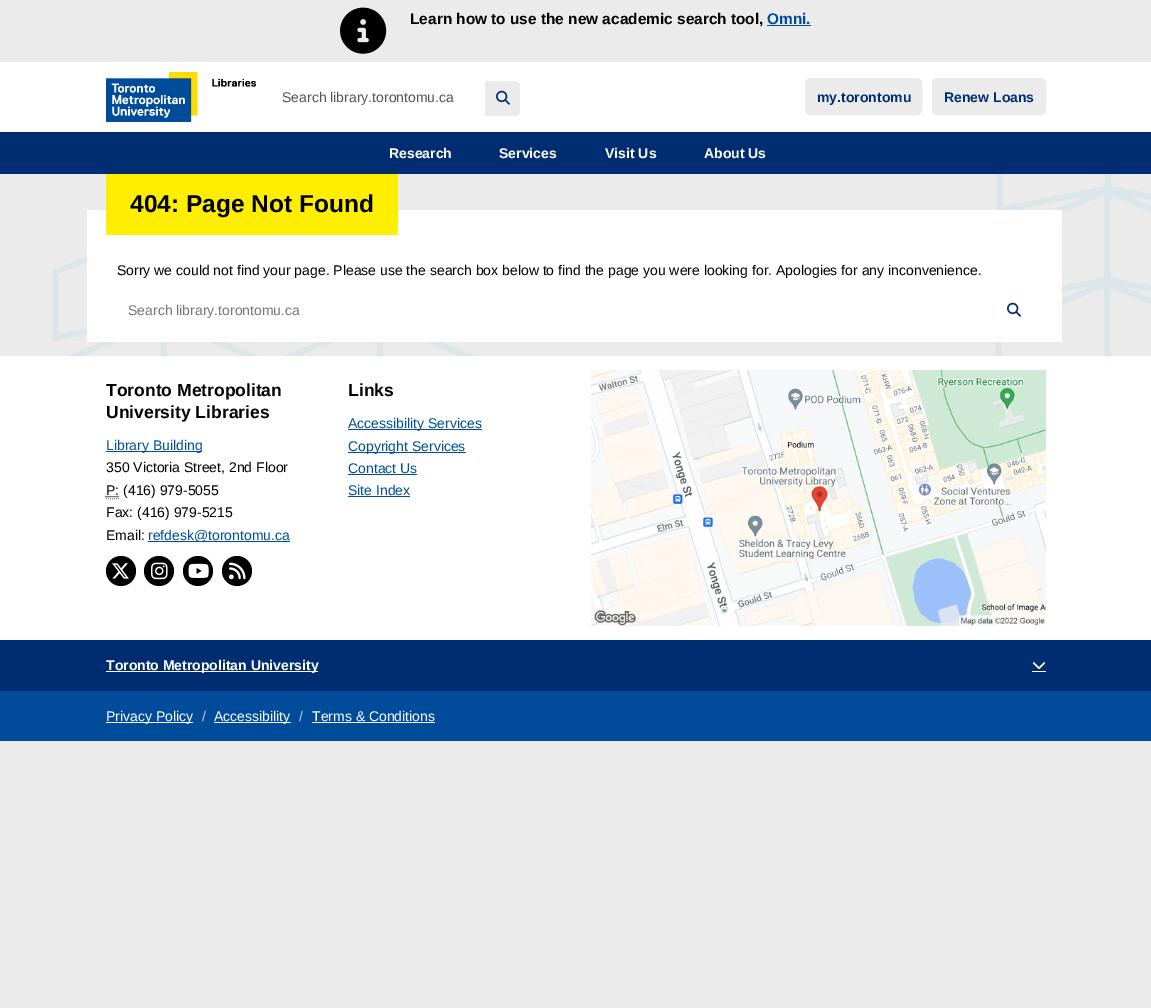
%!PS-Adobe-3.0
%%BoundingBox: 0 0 1151 1008
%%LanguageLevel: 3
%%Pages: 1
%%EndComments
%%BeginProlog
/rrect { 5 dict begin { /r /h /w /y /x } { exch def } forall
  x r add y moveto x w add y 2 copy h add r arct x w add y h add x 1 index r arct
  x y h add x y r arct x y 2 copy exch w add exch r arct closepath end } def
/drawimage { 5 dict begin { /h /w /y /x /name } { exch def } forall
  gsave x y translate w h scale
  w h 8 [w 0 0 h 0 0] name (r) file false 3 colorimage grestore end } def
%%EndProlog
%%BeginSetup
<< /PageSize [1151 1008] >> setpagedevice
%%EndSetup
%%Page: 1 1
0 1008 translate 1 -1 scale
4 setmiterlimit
0.922 setgray
0 0 1151 1008 rectfill
(images/1.raw) 340 7 47 47 drawimage
0 0.298 0.608 setrgbcolor
767 25 44 1 rectfill
1 setgray
0 62 1151 70 rectfill
(images/2.raw) 106 72 150 50 drawimage
0.922 setgray
newpath 485 81 moveto 515 81 lineto 518 81 520 83 520 86 curveto 520 111 lineto 520 114 518 116 515 116 curveto 485 116 lineto closepath fill
(images/3.raw) 496 90 14 15 drawimage
805.5 78.5 116 36 4.5 rrect gsave fill grestore
stroke
932.5 78.5 113 36 4.5 rrect gsave fill grestore
stroke
0 0.176 0.447 setrgbcolor
0 132 1151 42 rectfill
(images/4.raw) 52 174 1099 182 drawimage
1 setgray
87 210 975 132 rectfill
1 0.933 0 setrgbcolor
106 174 292 61 rectfill
(images/5.raw) 1007 302 14 15 drawimage
1 setgray
0 356 1151 284 rectfill
0 0.298 0.608 setrgbcolor
106 451 96 1 rectfill
0.467 setgray
[1 1] 0 setdash
newpath 106 498.5 moveto 119 498.5 lineto stroke
0 setgray
newpath 105.5 496.5 moveto 118.5 496.5 lineto stroke
0 0.298 0.608 setrgbcolor
148 541 142 1 rectfill
0 setgray
newpath 121 571 15 0 360 arc closepath fill
(images/6.raw) 112 563 17 16 drawimage
newpath 159 571 15 0 360 arc closepath fill
(images/7.raw) 151 562 17 18 drawimage
newpath 198 571 15 0 360 arc closepath fill
(images/8.raw) 188 563 21 15 drawimage
newpath 237 571 15 0 360 arc closepath fill
(images/9.raw) 229 562 17 18 drawimage
0 0.298 0.608 setrgbcolor
348 429 134 1 rectfill
348 452 118 1 rectfill
348 474 69 1 rectfill
348 496 62 1 rectfill
(images/10.raw) 591 370 455 256 drawimage
0 0.176 0.447 setrgbcolor
0 640 1151 51 rectfill
1 setgray
106 671 212 1 rectfill
(images/11.raw) 1033 662 12 7 drawimage
1032 671 14 1 rectfill
0 0.298 0.608 setrgbcolor
0 691 1151 50 rectfill
1 setgray
106 722 87 1 rectfill
214 722 77 1 rectfill
312 722 123 1 rectfill
/LiberationSans-Bold [15.4 0 0 -15.4 0 0] selectfont
0 setgray
410 24 moveto (Learn how to use the new academic search tool,) show
0 0.298 0.608 setrgbcolor
767 24 moveto (Omni.) show
/LiberationSans-Regular [14 0 0 -14 0 0] selectfont
0.329 setgray
282 102 moveto (Search library.torontomu.ca) show
/LiberationSans-Bold [14 0 0 -14 0 0] selectfont
0 0.176 0.447 setrgbcolor
817 102 moveto (my.torontomu) show
944 102 moveto (Renew Loans) show
1 setgray
389 158 moveto (Research) show
499 158 moveto (Services) show
605 158 moveto (Visit Us) show
704 158 moveto (About Us) show
/LiberationSans-Bold [24.5 0 0 -24.5 0 0] selectfont
0 setgray
130 212 moveto (404: Page Not Found) show
/LiberationSans-Regular [14 0 0 -14 0 0] selectfont
117 275 moveto (Sorry we could not find your page. Please use the search box below to find the page you were looking for. Apologies for any inconvenience.) show
0.459 setgray
128 315 moveto (Search library.torontomu.ca) show
/LiberationSans-Bold [17.5 0 0 -17.5 0 0] selectfont
0 setgray
106 396 moveto (Toronto Metropolitan) show
106 418 moveto (University Libraries) show
/LiberationSans-Regular [14 0 0 -14 0 0] selectfont
0 0.298 0.608 setrgbcolor
106 450 moveto (Library Building) show
0 setgray
106 472 moveto (350 Victoria Street, 2nd Floor) show
106 495 moveto (P: \(416\) 979-5055) show
106 517 moveto (Fax: \(416\) 979-5215) show
106 540 moveto (Email:) show
0 0.298 0.608 setrgbcolor
148 540 moveto (refdesk@torontomu.ca) show
/LiberationSans-Bold [17.5 0 0 -17.5 0 0] selectfont
0 setgray
348 396 moveto (Links) show
/LiberationSans-Regular [14 0 0 -14 0 0] selectfont
0 0.298 0.608 setrgbcolor
348 428 moveto (Accessibility Services) show
348 451 moveto (Copyright Services) show
348 473 moveto (Contact Us) show
348 495 moveto (Site Index) show
/LiberationSans-Bold [14 0 0 -14 0 0] selectfont
1 setgray
106 670 moveto (Toronto Metropolitan University) show
/LiberationSans-Regular [14 0 0 -14 0 0] selectfont
106 721 moveto (Privacy Policy) show
0.8 setgray
202 721 moveto (/) show
1 setgray
214 721 moveto (Accessibility) show
0.8 setgray
299 721 moveto (/) show
1 setgray
312 721 moveto (Terms & Conditions) show
showpage
%%EOF
